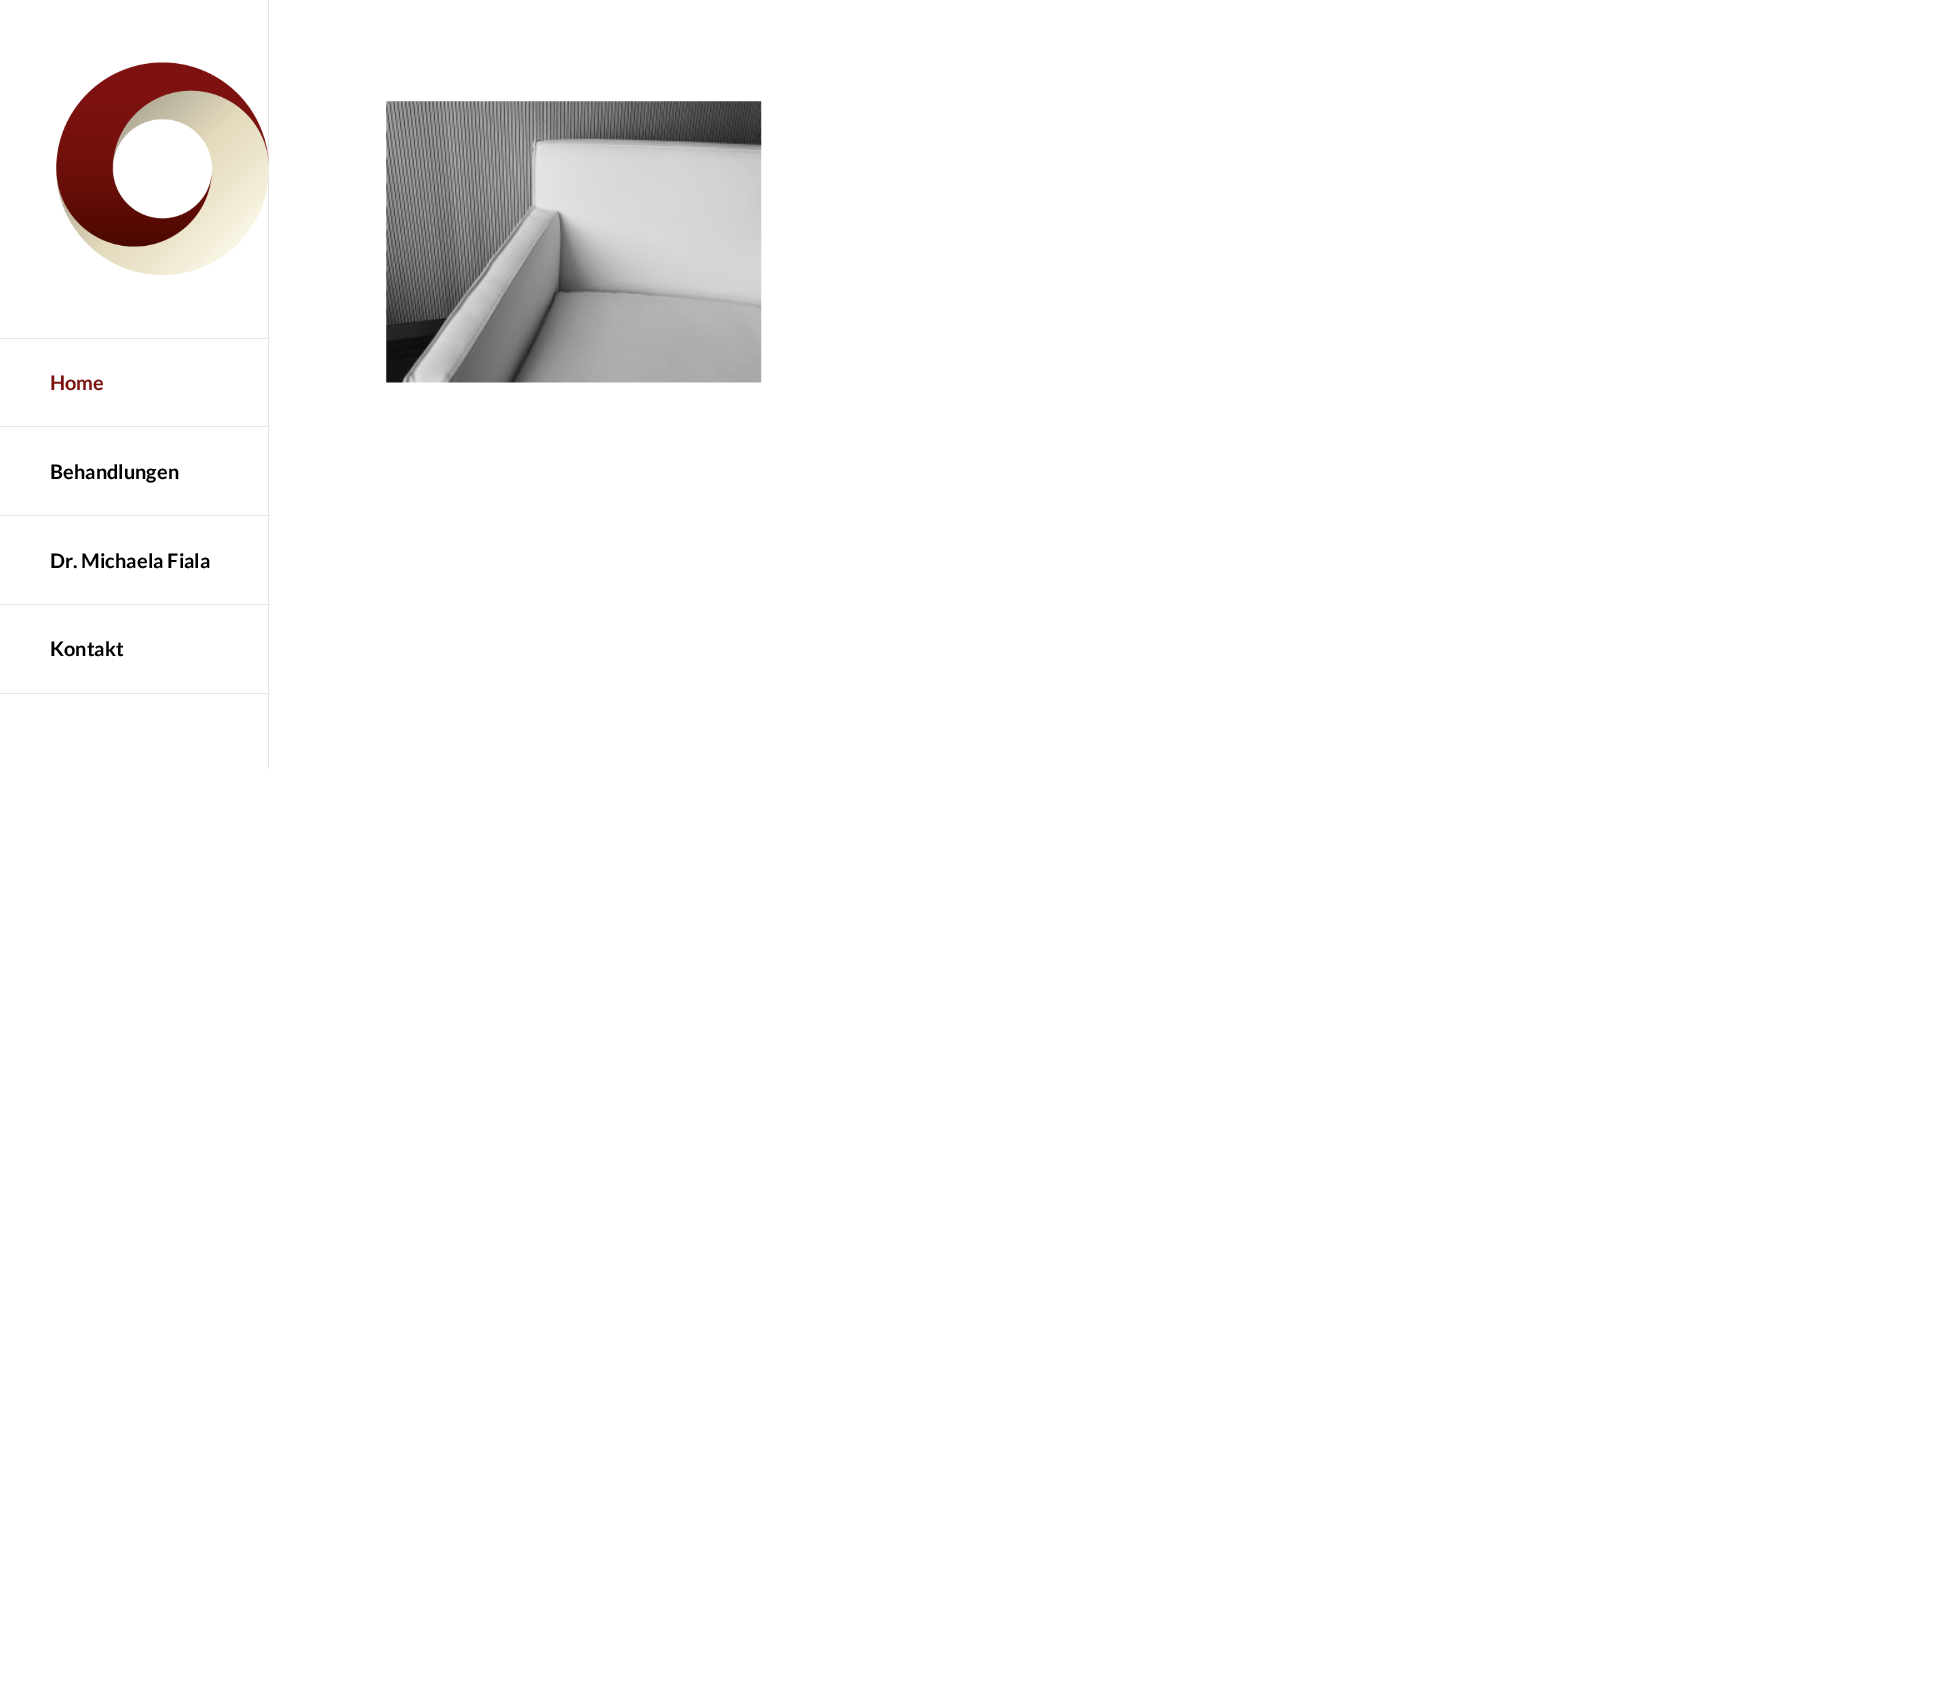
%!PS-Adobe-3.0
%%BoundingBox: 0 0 1948 1683
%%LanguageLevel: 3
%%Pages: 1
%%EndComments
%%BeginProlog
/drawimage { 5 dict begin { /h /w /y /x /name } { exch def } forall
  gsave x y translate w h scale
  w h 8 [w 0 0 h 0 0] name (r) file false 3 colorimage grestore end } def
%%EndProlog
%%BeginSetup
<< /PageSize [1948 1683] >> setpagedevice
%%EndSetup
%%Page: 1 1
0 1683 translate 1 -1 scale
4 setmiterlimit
1 setgray
0 0 1948 1683 rectfill
(images/1.raw) 386 101 376 282 drawimage
0.898 setgray
268 0 1 769 rectfill
(images/2.raw) 56 62 213 213 drawimage
0 338 269 1 rectfill
0 426 269 1 rectfill
0 515 269 1 rectfill
0 604 269 1 rectfill
0 693 269 1 rectfill
/Lato-Bold [20 0 0 -20 0 0] selectfont
0.494 0.071 0.063 setrgbcolor
50 390 moveto (Home) show
0 setgray
50 479 moveto (Behandlungen) show
50 568 moveto (Dr. Michaela Fiala) show
50 656 moveto (Kontakt) show
showpage
%%EOF
